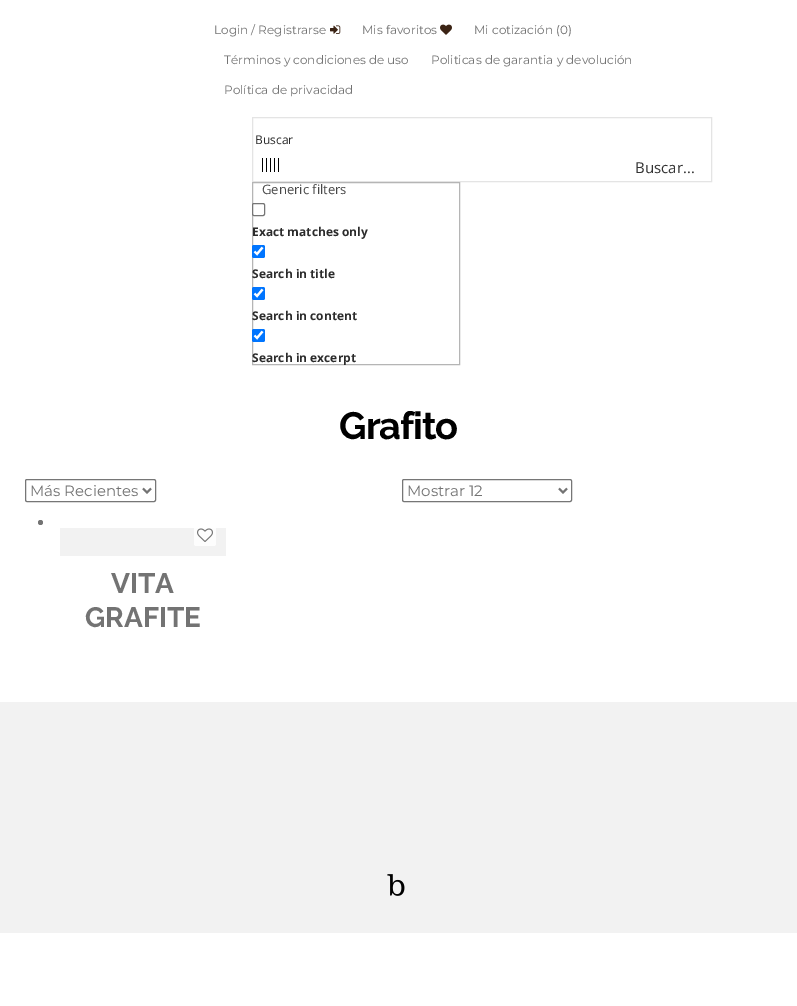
%!PS-Adobe-3.0
%%BoundingBox: 0 0 797 1006
%%LanguageLevel: 3
%%Pages: 1
%%EndComments
%%BeginProlog
/rrect { 5 dict begin { /r /h /w /y /x } { exch def } forall
  x r add y moveto x w add y 2 copy h add r arct x w add y h add x 1 index r arct
  x y h add x y r arct x y 2 copy exch w add exch r arct closepath end } def
/drawimage { 5 dict begin { /h /w /y /x /name } { exch def } forall
  gsave x y translate w h scale
  w h 8 [w 0 0 h 0 0] name (r) file false 3 colorimage grestore end } def
%%EndProlog
%%BeginSetup
<< /PageSize [797 1006] >> setpagedevice
%%EndSetup
%%Page: 1 1
0 1006 translate 1 -1 scale
4 setmiterlimit
1 setgray
0 0 797 1006 rectfill
(images/1.raw) 330 25 11 9 drawimage
(images/2.raw) 440 24 12 11 drawimage
0.894 setgray
252.5 117.5 459 64 rectstroke
0 setgray
262 158 1 14 0.5 rrect fill
266 158 1 14 0.5 rrect fill
270 158 1 14 0.5 rrect fill
274 158 1 14 0.5 rrect fill
278 158 1 14 0.5 rrect fill
0.71 setgray
252.5 182.5 207 182 rectstroke
1 setgray
252.5 203.5 12 12 1.5 rrect gsave fill grestore
0.463 setgray
stroke
0 0.459 1 setrgbcolor
252 245 13 13 2 rrect fill
1 setgray
2.1 setlinewidth
newpath 254.5 251.5 moveto 257 254 lineto 262.5 247.5 lineto stroke
0 0.459 1 setrgbcolor
252 287 13 13 2 rrect fill
1 setgray
newpath 254.5 293.5 moveto 257 296 lineto 262.5 289.5 lineto stroke
0 0.459 1 setrgbcolor
252 329 13 13 2 rrect fill
1 setgray
newpath 254.5 335.5 moveto 257 338 lineto 262.5 331.5 lineto stroke
0.463 setgray
1 setlinewidth
25.5 479.5 130 22 1.5 rrect stroke
0.451 setgray
2 setlinewidth
newpath 143 488.5 moveto 147 492.5 lineto 151 488.5 lineto stroke
0.463 setgray
1 setlinewidth
402.5 479.5 169 22 1.5 rrect stroke
0.451 setgray
2 setlinewidth
newpath 559 488.5 moveto 563 492.5 lineto 567 488.5 lineto stroke
newpath 40.5 522.5 2.5 0 360 arc closepath fill
0.949 setgray
60 528 166 28 rectfill
0.992 setgray
newpath 194 528 moveto 216 528 lineto 216 544 lineto 216 545 215 546 214 546 curveto 196 546 lineto 195 546 194 545 194 544 curveto closepath fill
(images/3.raw) 197 528 16 14 drawimage
0.949 setgray
0 702 797 231 rectfill
(images/4.raw) 387 874 18 22 drawimage
/Montserrat-Regular [12 0 0 -12 0 0] selectfont
0.451 setgray
214 34 moveto (Login / Registrarse) show
362 34 moveto (Mis favoritos) show
474 34 moveto (Mi cotización) show
0.4 setgray
556 34 moveto (\(0\)) show
0.451 setgray
224 64 moveto (Términos y condiciones de uso) show
431 64 moveto (Politicas de garantia y devolución) show
224 94 moveto (Política de privacidad) show
/OpenSans-Regular [12 0 0 -12 0 0] selectfont
0.169 setgray
255 144 moveto (Buscar) show
/OpenSans-Regular [15 0 0 -15 0 0] selectfont
0.2 setgray
635 173 moveto (Buscar...) show
/OpenSans-Regular [13 0 0 -13 0 0] selectfont
0.278 setgray
262 194 moveto (Generic filters) show
/OpenSans-Bold [12 0 0 -12 0 0] selectfont
0.169 setgray
252 236 moveto (Exact matches only) show
252 278 moveto (Search in title) show
252 320 moveto (Search in content) show
252 362 moveto (Search in excerpt) show
/Raleway-Bold [38 0 0 -38 0 0] selectfont
0 setgray
339 439 moveto -1 0 (Grafito) ashow
/Montserrat-Regular [15 0 0 -15 0 0] selectfont
0.451 setgray
30 496 moveto (Más Recientes) show
407 496 moveto (Mostrar 12) show
/Raleway-Bold [28 0 0 -28 0 0] selectfont
111 593 moveto (VITA) show
85 627 moveto (GRAFITE) show
showpage
%%EOF
